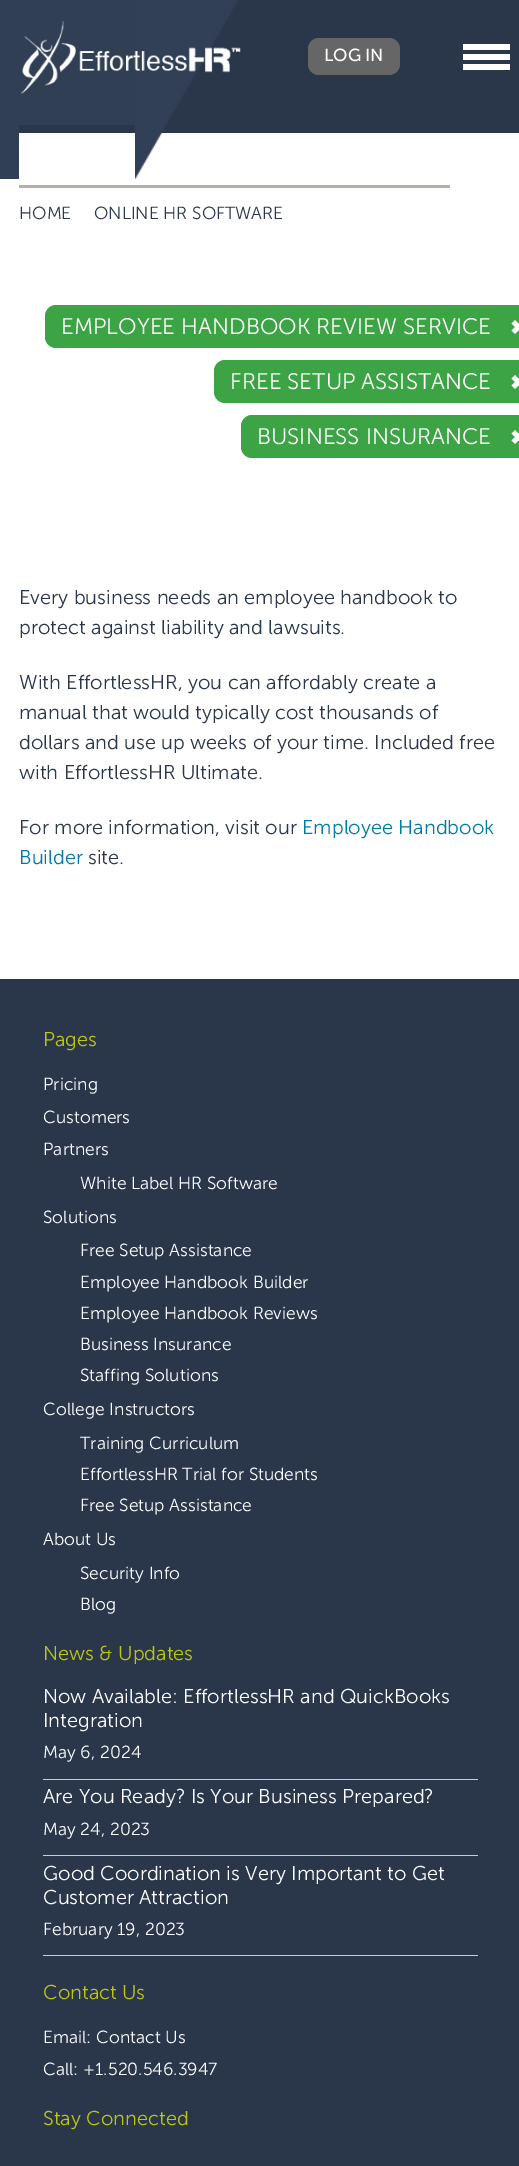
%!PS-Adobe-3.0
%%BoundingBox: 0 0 519 2166
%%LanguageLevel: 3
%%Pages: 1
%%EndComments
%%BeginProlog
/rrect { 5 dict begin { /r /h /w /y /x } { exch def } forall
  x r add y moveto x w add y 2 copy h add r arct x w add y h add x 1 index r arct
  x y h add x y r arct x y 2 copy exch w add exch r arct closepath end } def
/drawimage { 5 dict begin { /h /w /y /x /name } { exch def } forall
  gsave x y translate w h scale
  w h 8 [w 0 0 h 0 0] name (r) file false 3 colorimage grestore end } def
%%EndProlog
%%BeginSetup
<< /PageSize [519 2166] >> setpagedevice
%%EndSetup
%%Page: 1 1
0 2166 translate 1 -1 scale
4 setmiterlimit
1 setgray
0 0 519 2166 rectfill
0.165 0.216 0.294 setrgbcolor
19 0 500 133 rectfill
0.192 0.247 0.333 setrgbcolor
19 0 116 125 rectfill
0 0 19 179 rectfill
(images/1.raw) 135 0 103 179 drawimage
(images/2.raw) 21 21 220 73 drawimage
0.4 setgray
308 38 92 37 11 rrect fill
1 setgray
463 44 47 6 rectfill
463 54 47 6 rectfill
463 64 47 6 rectfill
0.714 0.682 0.659 setrgbcolor
19 185 431 3 rectfill
0.239 0.643 0.275 setrgbcolor
newpath 56 305 moveto 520 305 lineto 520 348 lineto 56 348 lineto 50 348 45 343 45 337 curveto 45 316 lineto 45 310 50 305 56 305 curveto closepath fill
1 setgray
newpath 515 320 moveto 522 327 lineto 518.5 330.5 lineto 511.5 323.5 lineto closepath fill
newpath 518.5 323.5 moveto 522 327 lineto 515 334 lineto 511.5 330.5 lineto closepath fill
0.239 0.643 0.275 setrgbcolor
newpath 225 360 moveto 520 360 lineto 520 403 lineto 225 403 lineto 219 403 214 398 214 392 curveto 214 371 lineto 214 365 219 360 225 360 curveto closepath fill
1 setgray
newpath 515 375 moveto 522 382 lineto 518.5 385.5 lineto 511.5 378.5 lineto closepath fill
newpath 518.5 378.5 moveto 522 382 lineto 515 389 lineto 511.5 385.5 lineto closepath fill
0.239 0.643 0.275 setrgbcolor
newpath 252 415 moveto 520 415 lineto 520 458 lineto 252 458 lineto 246 458 241 453 241 447 curveto 241 426 lineto 241 420 246 415 252 415 curveto closepath fill
1 setgray
newpath 515 430 moveto 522 437 lineto 518.5 440.5 lineto 511.5 433.5 lineto closepath fill
newpath 518.5 433.5 moveto 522 437 lineto 515 444 lineto 511.5 440.5 lineto closepath fill
0.165 0.216 0.294 setrgbcolor
0 979 519 1187 rectfill
0.8 setgray
43 1779 435 1 rectfill
43 1855 435 1 rectfill
43 1955 435 1 rectfill
/MuseoSans-Regular [17.5 0 0 -17.5 0 0] selectfont
1 setgray
324 61 moveto (LOG IN) show
/MuseoSans-Light [17.5 0 0 -17.5 0 0] selectfont
0.165 0.216 0.294 setrgbcolor
19 219 moveto (HOME) show
94 219 moveto (ONLINE HR SOFTWARE) show
/MuseoSans-Light [22.5 0 0 -22.5 0 0] selectfont
1 setgray
61 334 moveto (EMPLOYEE HANDBOOK REVIEW SERVICE) show
230 389 moveto (FREE SETUP ASSISTANCE) show
257 444 moveto (BUSINESS INSURANCE) show
/MuseoSans-Light [20 0 0 -20 0 0] selectfont
0.165 0.216 0.294 setrgbcolor
19 604 moveto (Every business needs an employee handbook to) show
19 634 moveto (protect against liability and lawsuits.) show
19 689 moveto (With EffortlessHR, you can affordably create a) show
19 719 moveto (manual that would typically cost thousands of) show
19 749 moveto (dollars and use up weeks of your time. Included free) show
19 779 moveto (with EffortlessHR Ultimate.) show
19 834 moveto (For more information, visit our) show
0 0.482 0.643 setrgbcolor
302 834 moveto (Employee Handbook) show
19 864 moveto (Builder) show
0.165 0.216 0.294 setrgbcolor
88 864 moveto (site.) show
0.733 0.776 0.067 setrgbcolor
43 1046 moveto (Pages) show
/MuseoSans-Light [17.5 0 0 -17.5 0 0] selectfont
1 setgray
43 1090 moveto (Pricing) show
43 1123 moveto (Customers) show
43 1155 moveto (Partners) show
80 1189 moveto (White Label HR Software) show
43 1223 moveto (Solutions) show
80 1256 moveto (Free Setup Assistance) show
80 1288 moveto (Employee Handbook Builder) show
80 1319 moveto (Employee Handbook Reviews) show
80 1350 moveto (Business Insurance) show
80 1381 moveto (Staffing Solutions) show
43 1415 moveto (College Instructors) show
80 1449 moveto (Training Curriculum) show
80 1480 moveto (EffortlessHR Trial for Students) show
80 1511 moveto (Free Setup Assistance) show
43 1545 moveto (About Us) show
80 1579 moveto (Security Info) show
80 1610 moveto (Blog) show
/MuseoSans-Light [20 0 0 -20 0 0] selectfont
0.733 0.776 0.067 setrgbcolor
43 1660 moveto (News & Updates) show
1 setgray
43 1703 moveto (Now Available: EffortlessHR and QuickBooks) show
43 1727 moveto (Integration) show
/MuseoSans-Light [17.5 0 0 -17.5 0 0] selectfont
43 1758 moveto (May 6, 2024) show
/MuseoSans-Light [20 0 0 -20 0 0] selectfont
43 1803 moveto (Are You Ready? Is Your Business Prepared?) show
/MuseoSans-Light [17.5 0 0 -17.5 0 0] selectfont
43 1835 moveto (May 24, 2023) show
/MuseoSans-Light [20 0 0 -20 0 0] selectfont
43 1880 moveto (Good Coordination is Very Important to Get) show
43 1904 moveto (Customer Attraction) show
/MuseoSans-Light [17.5 0 0 -17.5 0 0] selectfont
43 1935 moveto (February 19, 2023) show
/MuseoSans-Light [20 0 0 -20 0 0] selectfont
0.733 0.776 0.067 setrgbcolor
43 1999 moveto (Contact Us) show
/MuseoSans-Light [17.5 0 0 -17.5 0 0] selectfont
1 setgray
43 2043 moveto (Email: Contact Us) show
43 2075 moveto (Call: +1.520.546.3947) show
/MuseoSans-Light [20 0 0 -20 0 0] selectfont
0.733 0.776 0.067 setrgbcolor
43 2125 moveto (Stay Connected) show
showpage
%%EOF
